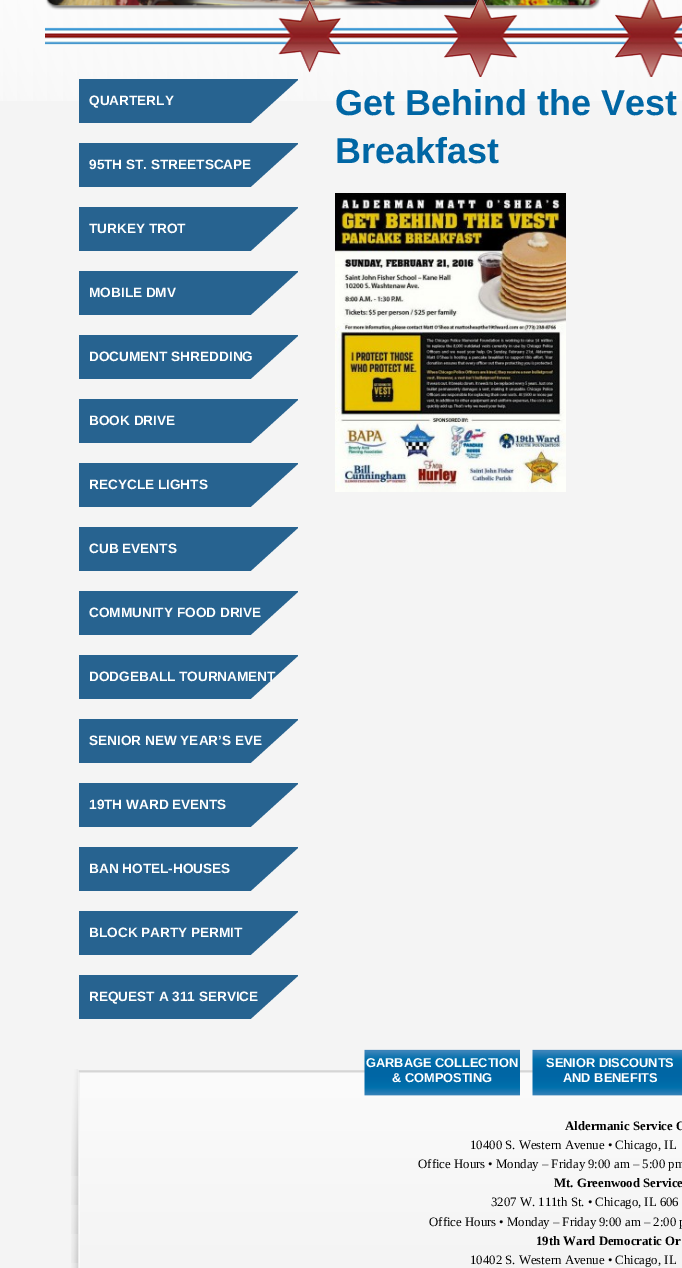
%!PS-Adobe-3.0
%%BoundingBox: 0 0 682 1268
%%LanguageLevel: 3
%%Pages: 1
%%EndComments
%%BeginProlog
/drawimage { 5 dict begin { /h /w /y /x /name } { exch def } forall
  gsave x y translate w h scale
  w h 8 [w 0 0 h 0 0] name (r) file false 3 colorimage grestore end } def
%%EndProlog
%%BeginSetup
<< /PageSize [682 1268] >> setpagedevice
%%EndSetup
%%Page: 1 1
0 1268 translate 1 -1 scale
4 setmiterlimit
0.957 setgray
0 0 682 1268 rectfill
(images/1.raw) 0 0 682 101 drawimage
(images/2.raw) 45 0 556 10 drawimage
(images/3.raw) 45 0 637 77 drawimage
(images/4.raw) 79 79 219 44 drawimage
(images/5.raw) 79 143 219 44 drawimage
(images/5.raw) 79 207 219 44 drawimage
(images/5.raw) 79 271 219 44 drawimage
(images/5.raw) 79 335 219 44 drawimage
(images/5.raw) 79 399 219 44 drawimage
(images/5.raw) 79 463 219 44 drawimage
(images/5.raw) 79 527 219 44 drawimage
(images/5.raw) 79 591 219 44 drawimage
(images/5.raw) 79 655 219 44 drawimage
(images/5.raw) 79 719 219 44 drawimage
(images/5.raw) 79 783 219 44 drawimage
(images/5.raw) 79 847 219 44 drawimage
(images/5.raw) 79 911 219 44 drawimage
(images/5.raw) 79 975 219 44 drawimage
(images/6.raw) 335 193 231 299 drawimage
(images/7.raw) 71 1069 611 199 drawimage
(images/8.raw) 364 1049 156 47 drawimage
(images/9.raw) 532 1049 150 47 drawimage
/LiberationSans-Bold [13.6 0 0 -13.6 0 0] selectfont
1 setgray
89 105 moveto (QUARTERLY) show
89 169 moveto (95TH ST. STREETSCAPE) show
89 233 moveto (TURKEY TROT) show
89 297 moveto (MOBILE DMV) show
89 361 moveto (DOCUMENT SHREDDING) show
89 425 moveto (BOOK DRIVE) show
89 489 moveto (RECYCLE LIGHTS) show
89 553 moveto (CUB EVENTS) show
89 617 moveto (COMMUNITY FOOD DRIVE) show
89 681 moveto (DODGEBALL TOURNAMENT) show
89 745 moveto (SENIOR NEW YEAR’S EVE) show
89 809 moveto (19TH WARD EVENTS) show
89 873 moveto (BAN HOTEL-HOUSES) show
89 937 moveto (BLOCK PARTY PERMIT) show
89 1001 moveto (REQUEST A 311 SERVICE) show
/LiberationSans-Bold [36 0 0 -36 0 0] selectfont
0 0.4 0.643 setrgbcolor
335 115 moveto (Get Behind the Vest) show
335 163 moveto (Breakfast) show
/LiberationSans-Bold [12.8 0 0 -12.8 0 0] selectfont
1 setgray
366 1067 moveto (GARBAGE COLLECTION) show
392 1082 moveto (& COMPOSTING) show
546 1067 moveto (SENIOR DISCOUNTS) show
563 1082 moveto (AND BENEFITS) show
/LiberationSerif-Bold [12.8 0 0 -12.8 0 0] selectfont
0 setgray
565 1130 moveto (Aldermanic Service O) show
/LiberationSerif-Regular [12.8 0 0 -12.8 0 0] selectfont
470 1149 moveto (10400 S. Western Avenue • Chicago, IL) show
418 1168 moveto (Office Hours • Monday – Friday 9:00 am – 5:00 pm) show
/LiberationSerif-Bold [12.8 0 0 -12.8 0 0] selectfont
554 1187 moveto (Mt. Greenwood Service) show
/LiberationSerif-Regular [12.8 0 0 -12.8 0 0] selectfont
491 1206 moveto (3207 W. 111th St. • Chicago, IL 606) show
429 1226 moveto (Office Hours • Monday – Friday 9:00 am – 2:00 p) show
/LiberationSerif-Bold [12.8 0 0 -12.8 0 0] selectfont
536 1245 moveto (19th Ward Democratic Or) show
/LiberationSerif-Regular [12.8 0 0 -12.8 0 0] selectfont
470 1264 moveto (10402 S. Western Avenue • Chicago, IL) show
showpage
%%EOF
